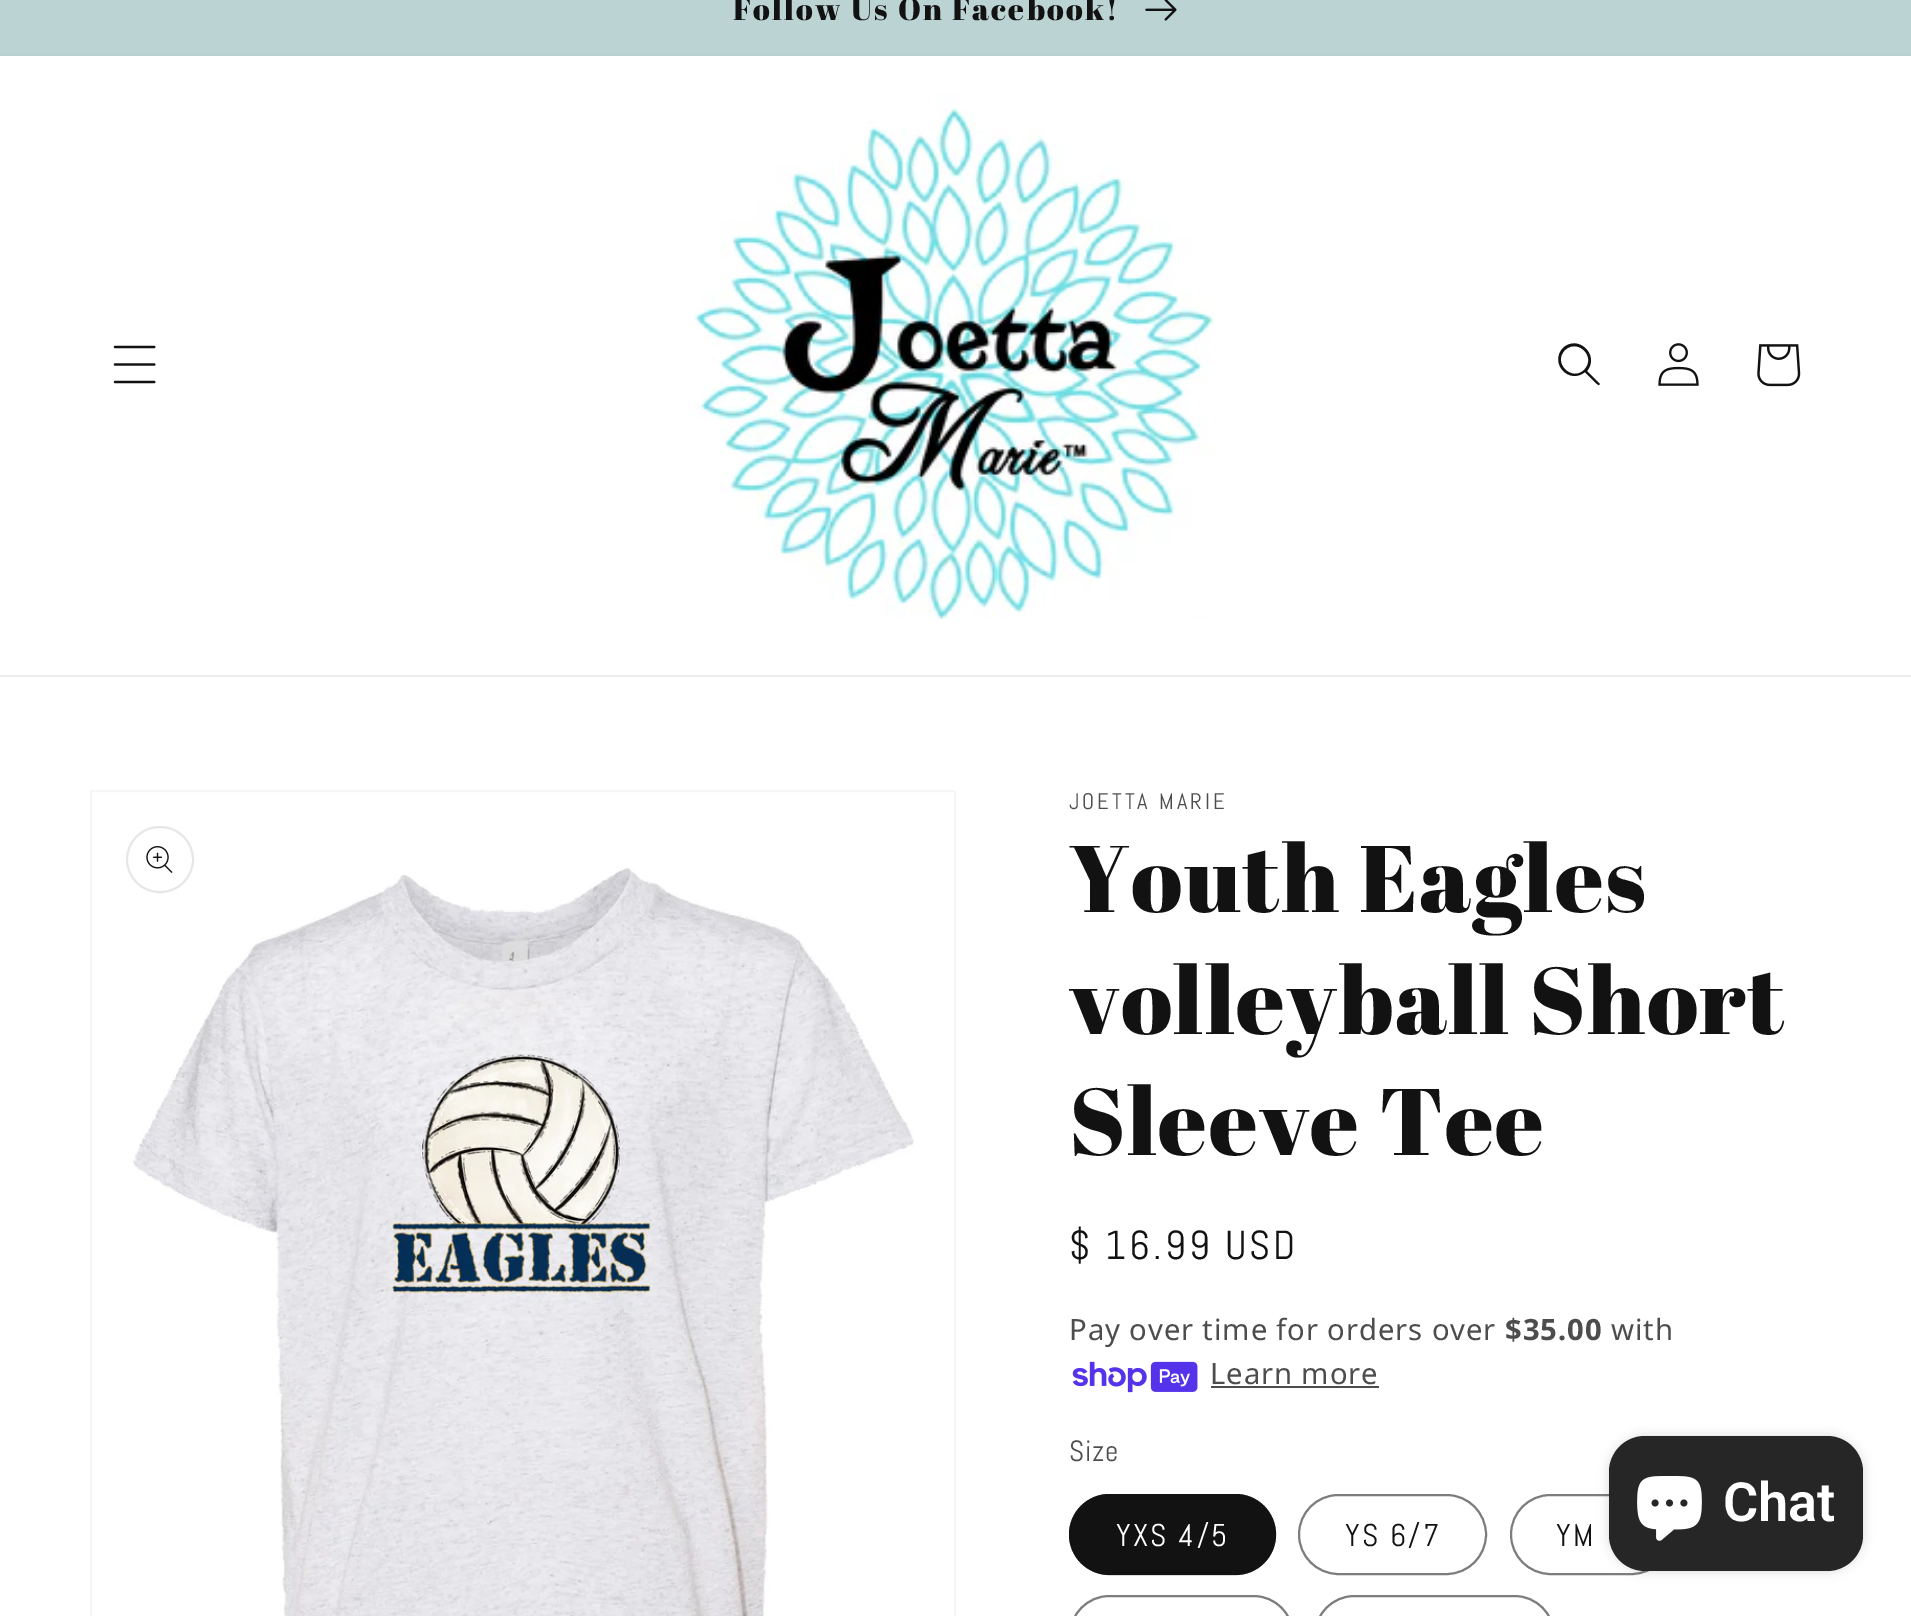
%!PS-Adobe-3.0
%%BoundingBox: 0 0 1911 1616
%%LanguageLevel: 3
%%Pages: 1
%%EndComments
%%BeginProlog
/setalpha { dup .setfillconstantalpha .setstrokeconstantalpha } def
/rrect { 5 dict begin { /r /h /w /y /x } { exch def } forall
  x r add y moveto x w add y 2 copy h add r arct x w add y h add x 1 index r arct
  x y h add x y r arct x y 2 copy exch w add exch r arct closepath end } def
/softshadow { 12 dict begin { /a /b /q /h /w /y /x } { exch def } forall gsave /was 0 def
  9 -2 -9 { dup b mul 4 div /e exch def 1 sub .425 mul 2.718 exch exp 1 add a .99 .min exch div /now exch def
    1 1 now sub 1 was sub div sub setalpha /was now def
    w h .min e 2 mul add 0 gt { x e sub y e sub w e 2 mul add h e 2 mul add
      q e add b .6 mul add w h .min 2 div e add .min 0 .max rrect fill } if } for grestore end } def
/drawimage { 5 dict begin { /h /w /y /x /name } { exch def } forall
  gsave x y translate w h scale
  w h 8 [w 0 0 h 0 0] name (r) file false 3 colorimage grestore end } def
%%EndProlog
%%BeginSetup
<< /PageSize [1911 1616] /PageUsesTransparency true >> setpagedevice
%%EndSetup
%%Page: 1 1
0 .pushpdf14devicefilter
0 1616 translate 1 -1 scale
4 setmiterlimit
1 setgray
0 0 1911 1616 rectfill
0.722 0.816 0.812 setrgbcolor
0 54 1911 2 rectfill
0.733 0.831 0.827 setrgbcolor
0 0 1911 54 rectfill
(images/1.raw) 1145 0 32 21 drawimage
0.925 setgray
0 675 1911 2 rectfill
(images/2.raw) 113 345 43 39 drawimage
(images/3.raw) 694 94 520 526 drawimage
0.071 setgray
newpath 1584 370 moveto 1572 382 1552 363 1565 350 curveto 1578 338 1597 357 1584 370 curveto closepath 1585 372 moveto 1569 385 1549 363 1563 348 curveto 1578 334 1600 355 1587 371 curveto 1600 384 lineto 1599 385 lineto 1598 386 1587 374 1585 372 curveto closepath eofill
(images/4.raw) 1658 343 41 43 drawimage
(images/5.raw) 1757 344 44 43 drawimage
0.965 setgray
2 setlinewidth
91 791 864 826 rectstroke
(images/7.raw) 132 867 782 749 drawimage
0.906 setgray
127 827 66 65 32.5 rrect stroke
(images/6.raw) 146 846 27 27 drawimage
(images/8.raw) 1072 1361 126 32 drawimage
0.302 setgray
1211 1386 168 2 rectfill
0.071 setgray
1069 1494 207 81 40.5 rrect fill
0.55 setalpha
1070 1495 205 79 39.5 rrect stroke
1 setalpha
0.49 setgray
1299 1495 187 79 39.5 rrect stroke
1511 1495 160 79 39.5 rrect stroke
1070 1596 223 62 39.5 rrect stroke
1315 1596 239 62 39.5 rrect stroke
0 setgray
1609 1436 254 135 36 5.5 0.15 softshadow
0.149 setgray
1609 1436 254 135 36 rrect fill
(images/9.raw) 1637 1476 65 65 drawimage
/AbrilFatface-Regular [30.75 0 0 -30.75 0 0] selectfont
0.071 setgray
733 20 moveto 2.25 0 (Follow Us On Facebook!) ashow
/Abel-Regular [22.5 0 0 -22.5 0 0] selectfont
0.302 setgray
1069 809 moveto 3 0 (JOETTA MARIE) ashow
/AbrilFatface-Regular [94.5 0 0 -94.5 0 0] selectfont
0.071 setgray
1069 912 moveto 1.4 0 (Youth Eagles) ashow
1069 1034 moveto 1.4 0 (volleyball Short) ashow
1069 1155 moveto 1.4 0 (Sleeve Tee) ashow
/Abel-Regular [40.5 0 0 -40.5 0 0] selectfont
1069 1259 moveto 3 0 ($ 16.99 USD) ashow
/NotoSans-Regular [29.25 0 0 -29.25 0 0] selectfont
0.302 setgray
1069 1340 moveto 0.9 0 (Pay over time for orders over) ashow
/NotoSans-Bold [29.25 0 0 -29.25 0 0] selectfont
1505 1340 moveto 0.9 0 ($35.00) ashow
/NotoSans-Regular [29.25 0 0 -29.25 0 0] selectfont
1611 1340 moveto 0.9 0 (with) ashow
1210 1384 moveto 0.9 0 (Learn more) ashow
/Abel-Regular [29.25 0 0 -29.25 0 0] selectfont
1069 1461 moveto 0.9 0 (Size) ashow
/Abel-Regular [31.5 0 0 -31.5 0 0] selectfont
1 setgray
1116 1546 moveto 2.25 0 (YXS 4/5) ashow
0.071 setgray
1345 1546 moveto 2.25 0 (YS 6/7) ashow
1556 1546 moveto 2.25 0 (YM) ashow
/Roboto-SemiBold [54 0 0 -54 0 0] selectfont
1 setgray
1723 1521 moveto (Chat) show
.poppdf14devicefilter showpage
%%EOF
